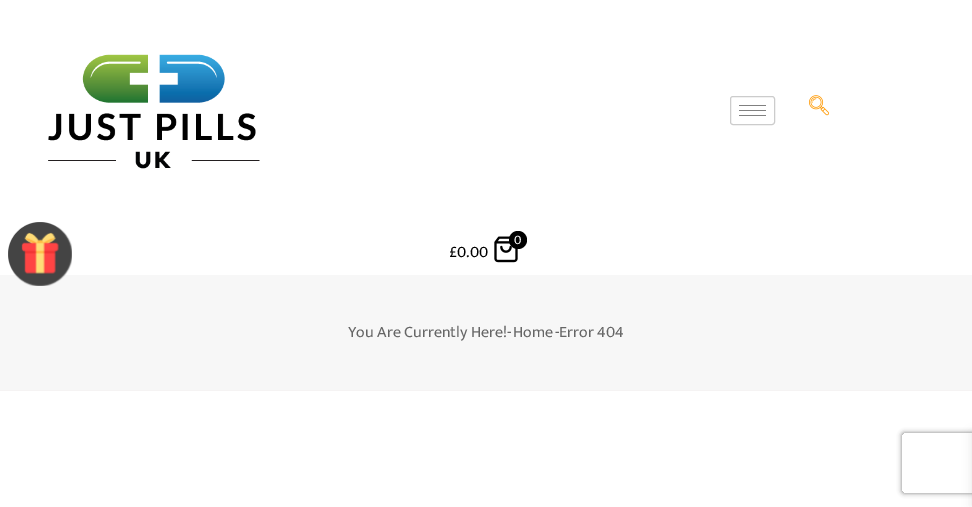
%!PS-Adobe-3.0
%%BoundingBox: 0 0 972 507
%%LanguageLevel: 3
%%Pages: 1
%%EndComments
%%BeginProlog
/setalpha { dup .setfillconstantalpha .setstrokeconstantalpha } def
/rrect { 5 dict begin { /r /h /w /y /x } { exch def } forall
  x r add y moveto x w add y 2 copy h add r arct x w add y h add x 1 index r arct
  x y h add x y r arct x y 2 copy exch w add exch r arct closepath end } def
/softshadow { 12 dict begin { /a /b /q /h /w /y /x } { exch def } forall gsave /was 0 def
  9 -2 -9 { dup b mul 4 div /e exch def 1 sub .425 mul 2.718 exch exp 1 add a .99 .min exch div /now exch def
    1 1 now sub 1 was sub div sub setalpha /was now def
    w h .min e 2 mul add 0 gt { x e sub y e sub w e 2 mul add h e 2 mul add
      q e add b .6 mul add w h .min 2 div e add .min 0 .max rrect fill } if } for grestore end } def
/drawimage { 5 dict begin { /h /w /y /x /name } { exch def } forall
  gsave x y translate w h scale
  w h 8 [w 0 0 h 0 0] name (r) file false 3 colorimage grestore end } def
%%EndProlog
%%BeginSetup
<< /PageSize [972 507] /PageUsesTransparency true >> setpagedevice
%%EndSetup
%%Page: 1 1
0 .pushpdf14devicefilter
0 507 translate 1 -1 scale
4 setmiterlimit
1 setgray
0 0 972 507 rectfill
0.969 setgray
0 275 972 115 rectfill
(images/1.raw) 8 222 64 64 drawimage
(images/2.raw) 48 54 212 115 drawimage
0.8 setgray
730.5 96.5 44 28 2.5 rrect stroke
0.502 setgray
739 105 27 1 rectfill
739 110 27 1 rectfill
739 115 27 1 rectfill
(images/3.raw) 809 95 20 21 drawimage
(images/4.raw) 494 236 24 27 drawimage
0 setgray
newpath 518 240 9 0 360 arc closepath fill
0.961 0.953 0.953 setrgbcolor
0 390 972 1 rectfill
0 setgray
972 433 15 73 0 5 0.1 softshadow
gsave
newpath 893 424 moveto 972 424 lineto 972 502 lineto 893 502 lineto closepath 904 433 moveto 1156 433 lineto 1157 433 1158 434 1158 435 curveto 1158 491 lineto 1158 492 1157 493 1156 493 curveto 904 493 lineto 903 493 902 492 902 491 curveto 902 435 lineto 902 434 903 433 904 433 curveto closepath eoclip newpath
0.502 setgray
902 433 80 60 2 2.5 1 softshadow
grestore
/Mukta-Regular [13 0 0 -13 0 0] selectfont
1 setgray
514 244 moveto (0) show
/Mukta-Regular [16 0 0 -16 0 0] selectfont
0 setgray
449 257 moveto (£0.00) show
0.4 setgray
348 337 moveto (You Are Currently Here!-) show
513 337 moveto (Home) show
555 337 moveto (-Error 404) show
.poppdf14devicefilter showpage
%%EOF
